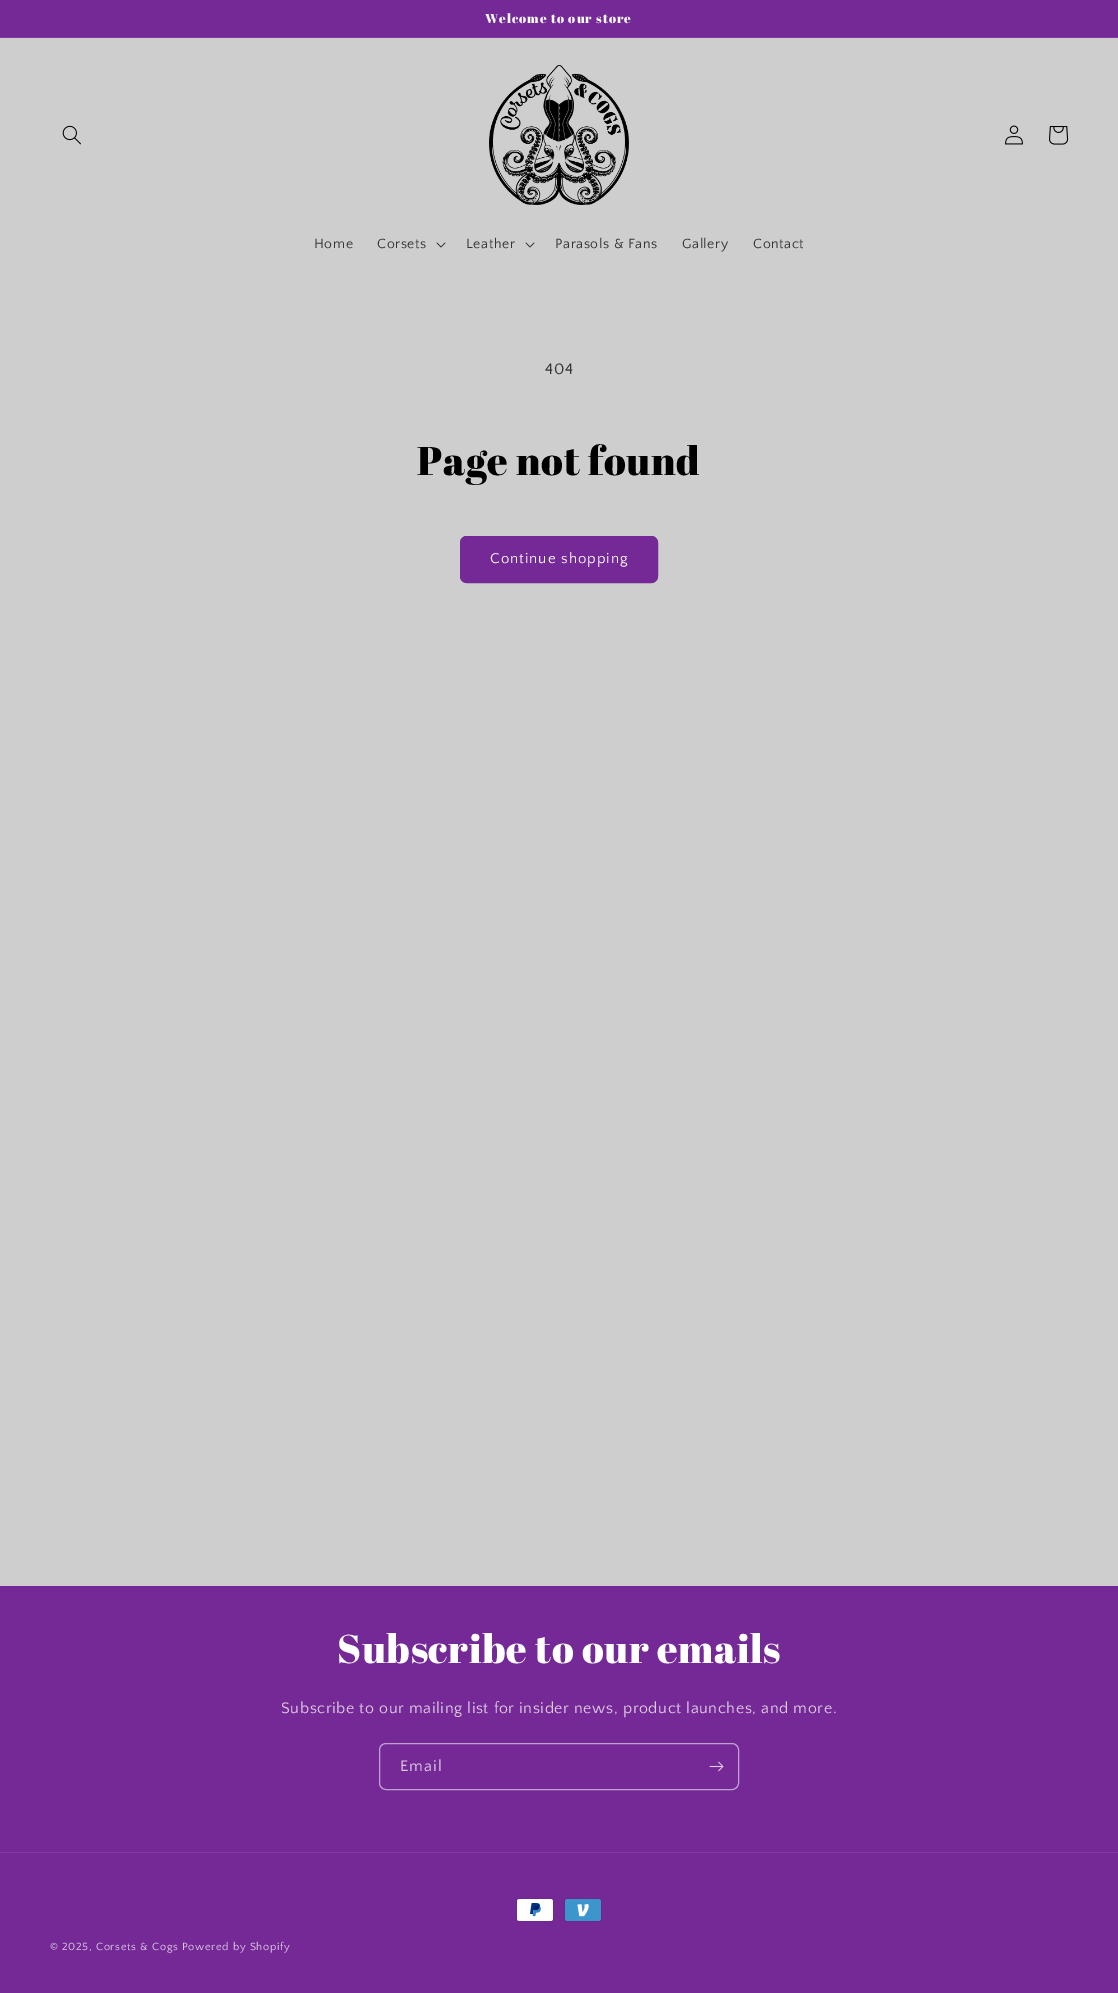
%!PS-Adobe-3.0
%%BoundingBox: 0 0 1118 1993
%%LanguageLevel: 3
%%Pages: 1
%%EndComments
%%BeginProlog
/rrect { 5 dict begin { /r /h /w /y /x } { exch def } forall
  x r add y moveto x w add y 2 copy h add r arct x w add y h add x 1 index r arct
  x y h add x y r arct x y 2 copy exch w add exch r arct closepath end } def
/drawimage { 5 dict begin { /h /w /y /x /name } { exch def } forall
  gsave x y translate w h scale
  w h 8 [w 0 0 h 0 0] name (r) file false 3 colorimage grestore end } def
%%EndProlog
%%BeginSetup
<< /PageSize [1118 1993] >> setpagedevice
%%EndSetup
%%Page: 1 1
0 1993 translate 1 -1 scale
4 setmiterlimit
0.808 setgray
0 0 1118 1993 rectfill
0.459 0.161 0.588 setrgbcolor
0 0 1118 37 rectfill
0.502 0.227 0.62 setrgbcolor
0 37 1118 1 rectfill
(images/1.raw) 62 125 19 20 drawimage
(images/2.raw) 489 65 140 140 drawimage
(images/3.raw) 1005 125 18 20 drawimage
(images/4.raw) 1049 126 20 19 drawimage
(images/5.raw) 436 242 10 6 drawimage
(images/5.raw) 525 242 10 6 drawimage
0.459 0.161 0.588 setrgbcolor
460 536 198 47 7 rrect fill
460.5 536.5 197 46 6.5 rrect stroke
0 1586 1118 407 rectfill
0.757 0.624 0.816 setrgbcolor
379.5 1743.5 359 46 6.5 rrect stroke
(images/6.raw) 709 1761 15 11 drawimage
0.502 0.227 0.62 setrgbcolor
0 1852 1118 1 rectfill
(images/7.raw) 516 1898 38 24 drawimage
(images/8.raw) 564 1898 38 24 drawimage
/AbrilFatface-Regular [13 0 0 -13 0 0] selectfont
1 setgray
485 23 moveto 1 0 (Welcome to our store) ashow
/QuattrocentoSans-Regular [14 0 0 -14 0 0] selectfont
0.204 setgray
314 248 moveto 0.6 0 (Home) ashow
377 248 moveto 0.6 0 (Corsets) ashow
466 248 moveto 0.6 0 (Leather) ashow
555 248 moveto 0.6 0 (Parasols & Fans) ashow
682 248 moveto 0.6 0 (Gallery) ashow
753 248 moveto 0.6 0 (Contact) ashow
/QuattrocentoSans-Regular [16 0 0 -16 0 0] selectfont
545 374 moveto 0.6 0 (404) ashow
/AbrilFatface-Regular [40 0 0 -40 0 0] selectfont
0 setgray
417 475 moveto 0.6 0 (Page not found) ashow
/QuattrocentoSans-Regular [15 0 0 -15 0 0] selectfont
1 setgray
490 563 moveto 1 0 (Continue shopping) ashow
/AbrilFatface-Regular [40 0 0 -40 0 0] selectfont
337 1663 moveto 0.6 0 (Subscribe to our emails) ashow
/QuattrocentoSans-Regular [16 0 0 -16 0 0] selectfont
0.867 0.792 0.898 setrgbcolor
281 1713 moveto 0.6 0 (Subscribe to our mailing list for insider news, product launches, and more.) ashow
400 1771 moveto 1 0 (Email) ashow
/QuattrocentoSans-Regular [11 0 0 -11 0 0] selectfont
50 1950 moveto 0.7 0 (© 2025, Corsets & Cogs Powered by Shopify) ashow
showpage
%%EOF
